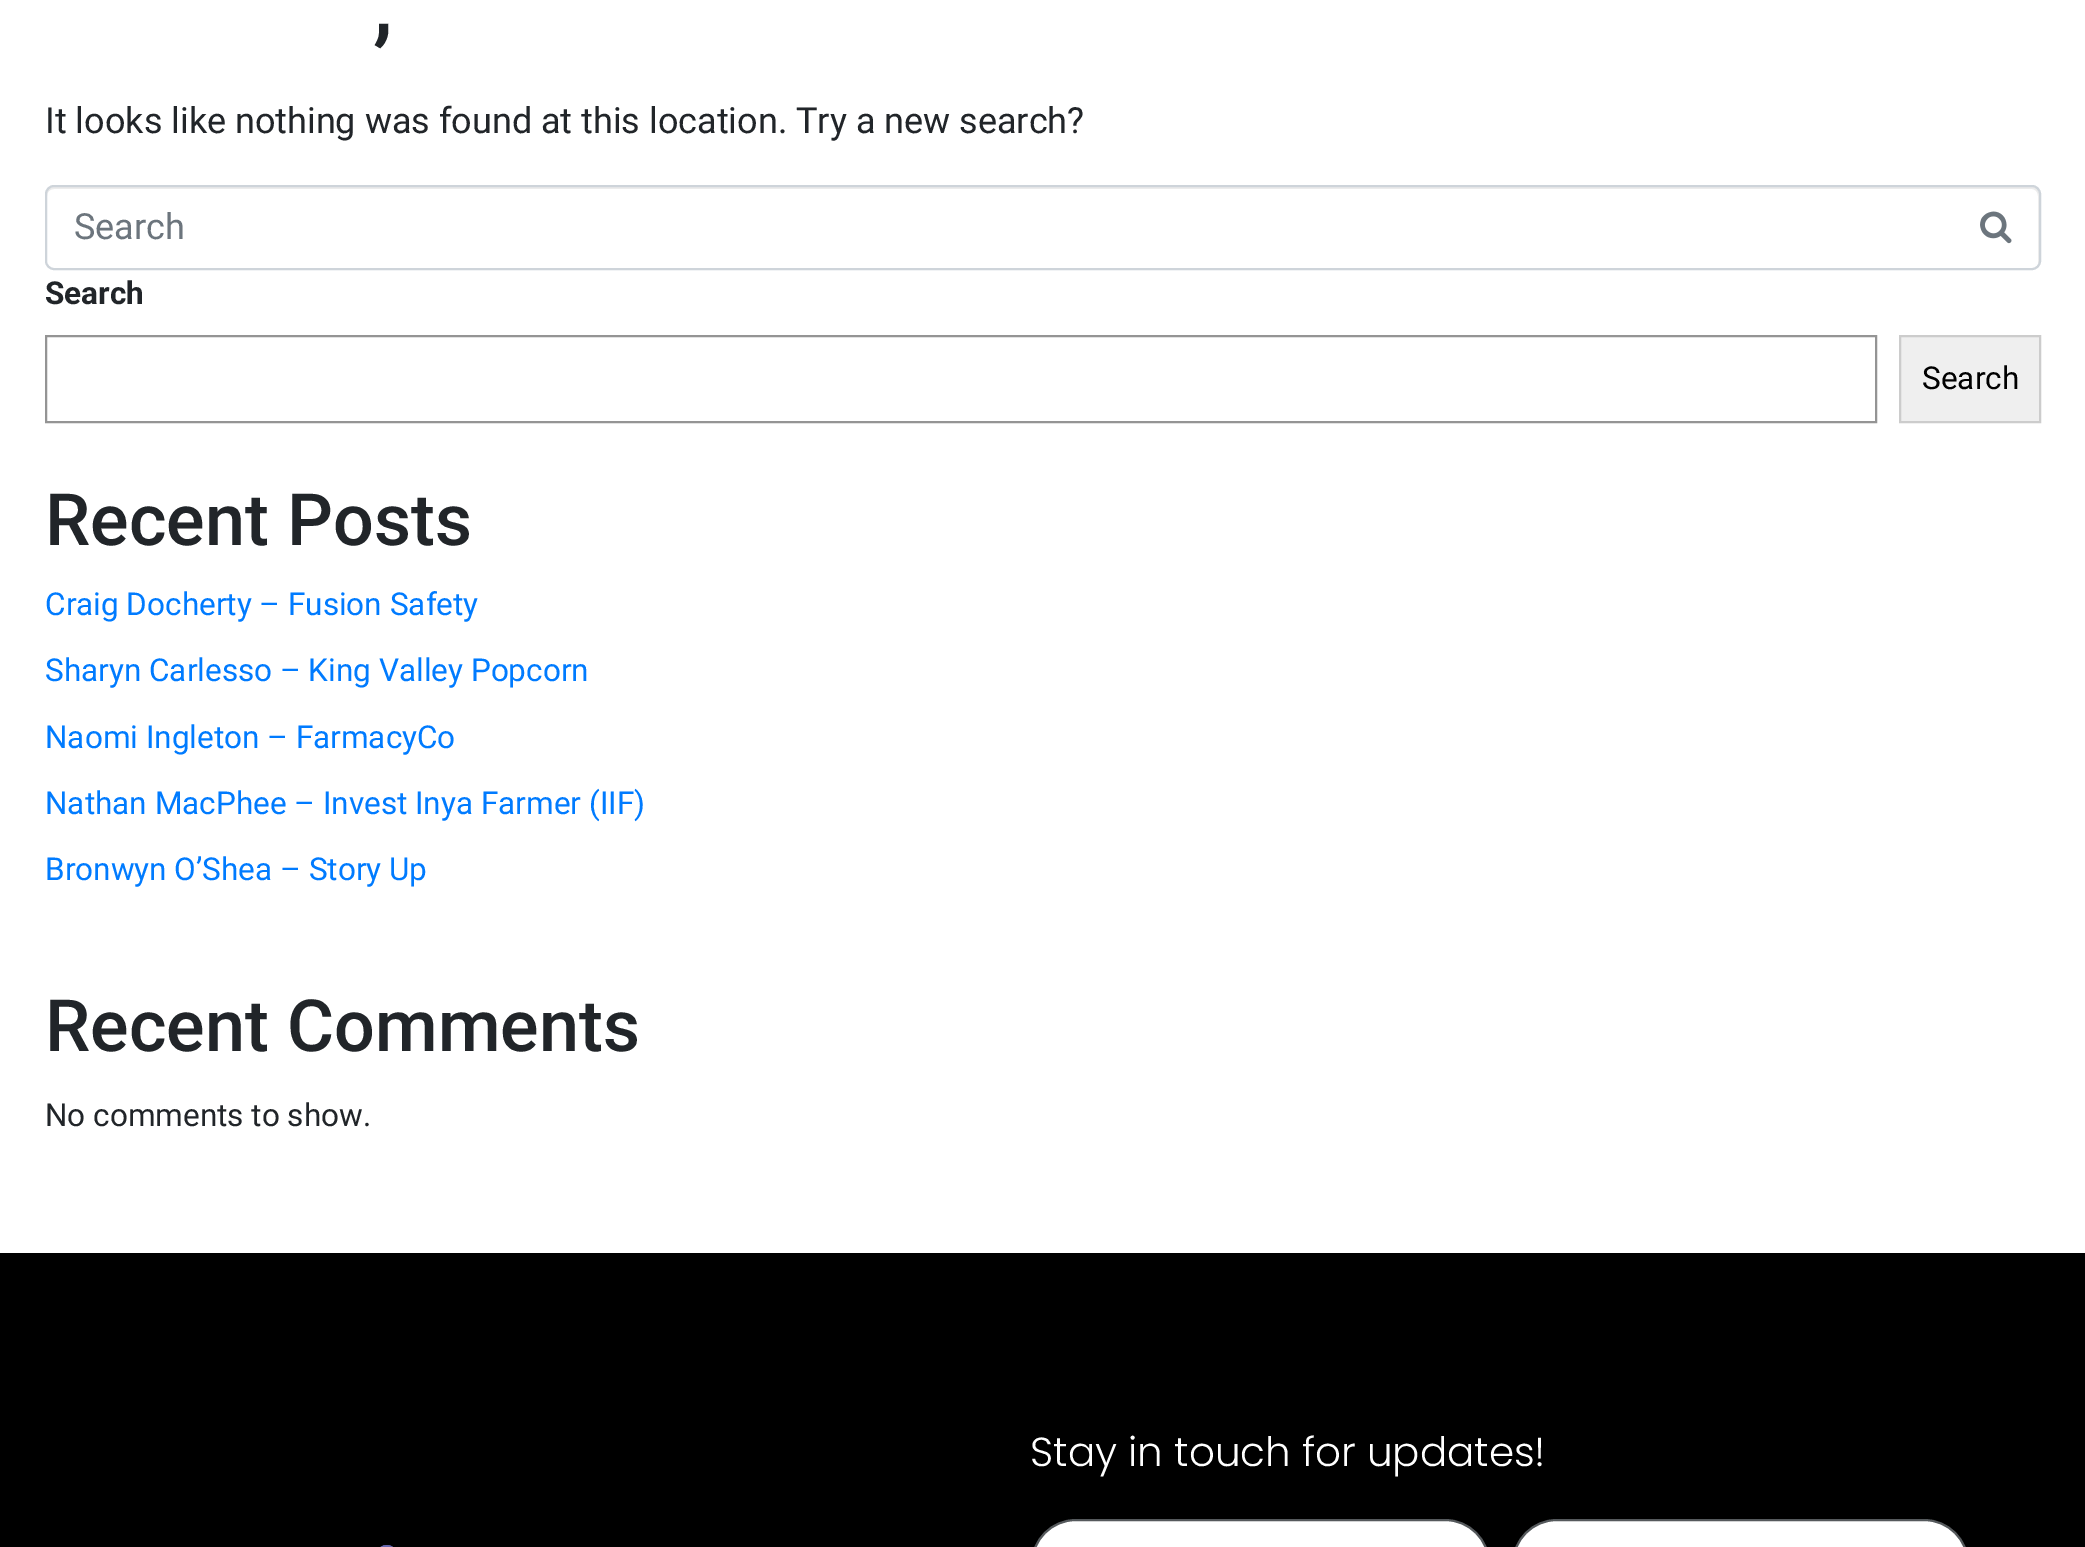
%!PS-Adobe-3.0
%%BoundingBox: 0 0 2085 1547
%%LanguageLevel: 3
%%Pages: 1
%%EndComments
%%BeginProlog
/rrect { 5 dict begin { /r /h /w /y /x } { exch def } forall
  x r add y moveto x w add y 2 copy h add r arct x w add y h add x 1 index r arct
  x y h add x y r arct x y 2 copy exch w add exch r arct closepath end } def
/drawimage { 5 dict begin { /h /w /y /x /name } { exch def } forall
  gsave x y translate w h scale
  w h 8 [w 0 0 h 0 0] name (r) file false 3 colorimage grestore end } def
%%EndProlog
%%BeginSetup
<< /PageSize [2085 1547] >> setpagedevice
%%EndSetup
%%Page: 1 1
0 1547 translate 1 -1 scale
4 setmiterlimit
1 setgray
0 0 2085 1547 rectfill
0.925 setgray
newpath 54 189 moveto 2032 189 lineto 2035 189 2038 192 2038 196 curveto 2038 265 lineto 2039 264 2039 262 2039 261 curveto 2039 194 lineto 2039 190 2036 187 2032 187 curveto 54 187 lineto 50 187 47 190 47 194 curveto 47 196 lineto 47 192 50 189 54 189 curveto closepath fill
0.808 0.831 0.855 setrgbcolor
2 setlinewidth
46 186 1994 83 8 rrect stroke
(images/1.raw) 1980 211 32 33 drawimage
0.58 setgray
46 336 1830 86 rectstroke
0.937 setgray
newpath 1900 336 moveto 2040 336 lineto 2040 422 lineto 1900 422 lineto closepath gsave fill grestore
0.8 setgray
stroke
0 setgray
0 1253 2085 294 rectfill
1 setgray
1032 1520 457 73 44 rrect gsave fill grestore
0.333 0.349 0.361 setrgbcolor
stroke
1 setgray
1513 1520 455 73 44 rrect gsave fill grestore
0.333 0.349 0.361 setrgbcolor
stroke
(images/2.raw) 380 1545 13 2 drawimage
/Roboto-Medium [90 0 0 -90 0 0] selectfont
0.129 0.145 0.161 setrgbcolor
373 34 moveto (,) show
/Roboto-Regular [36 0 0 -36 0 0] selectfont
45 133 moveto (It looks like nothing was found at this location. Try a new search?) show
0.424 0.459 0.49 setrgbcolor
74 239 moveto (Search) show
/Roboto-Bold [31.5 0 0 -31.5 0 0] selectfont
0.129 0.145 0.161 setrgbcolor
45 304 moveto (Search) show
/Roboto-Regular [31.5 0 0 -31.5 0 0] selectfont
0 setgray
1922 389 moveto (Search) show
/Roboto-Medium [72 0 0 -72 0 0] selectfont
0.129 0.145 0.161 setrgbcolor
45 545 moveto (Recent Posts) show
/Roboto-Regular [31.5 0 0 -31.5 0 0] selectfont
0 0.482 1 setrgbcolor
45 615 moveto (Craig Docherty – Fusion Safety) show
45 681 moveto (Sharyn Carlesso – King Valley Popcorn) show
45 748 moveto (Naomi Ingleton – FarmacyCo) show
45 814 moveto (Nathan MacPhee – Invest Inya Farmer \(IIF\)) show
45 880 moveto (Bronwyn O’Shea – Story Up) show
/Roboto-Medium [72 0 0 -72 0 0] selectfont
0.129 0.145 0.161 setrgbcolor
45 1051 moveto (Recent Comments) show
/Roboto-Regular [31.5 0 0 -31.5 0 0] selectfont
45 1126 moveto (No comments to show.) show
/Poppins-Light [40.5 0 0 -40.5 0 0] selectfont
1 setgray
1030 1466 moveto (Stay in touch for updates!) show
showpage
%%EOF
